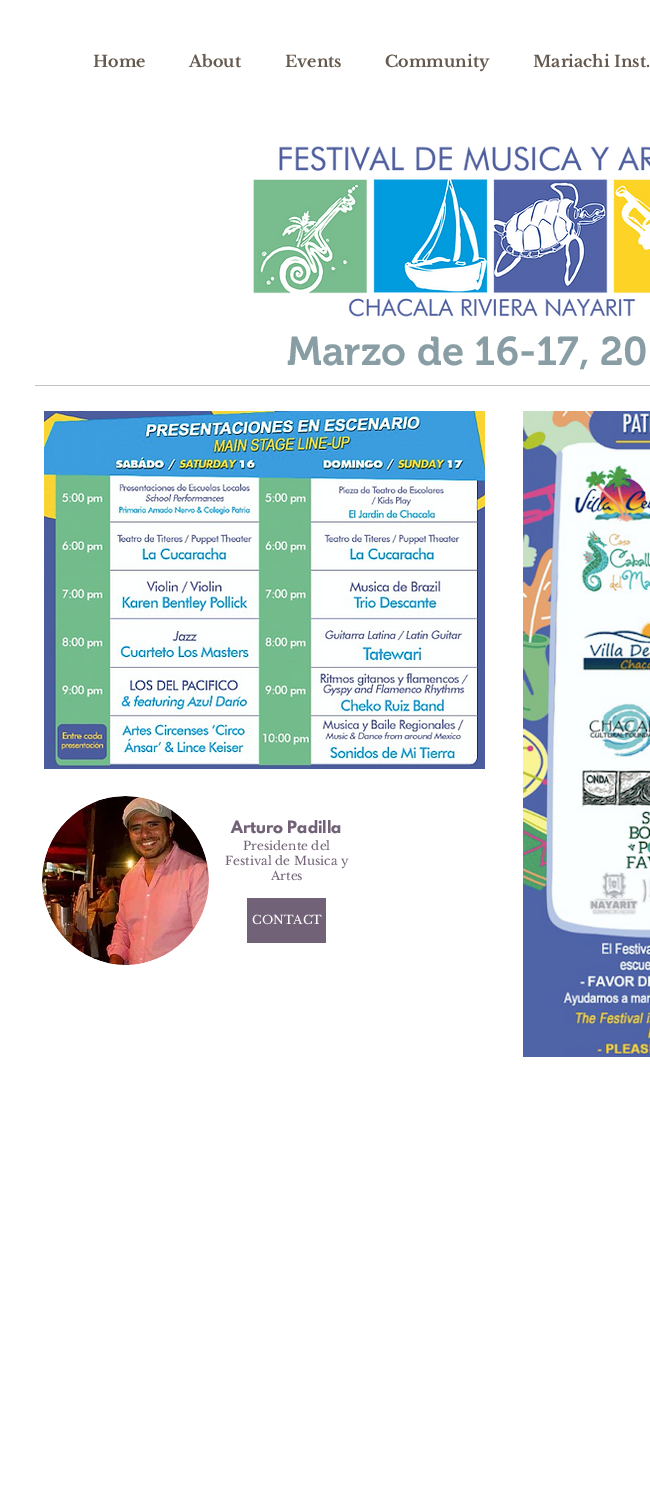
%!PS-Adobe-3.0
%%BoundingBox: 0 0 650 1502
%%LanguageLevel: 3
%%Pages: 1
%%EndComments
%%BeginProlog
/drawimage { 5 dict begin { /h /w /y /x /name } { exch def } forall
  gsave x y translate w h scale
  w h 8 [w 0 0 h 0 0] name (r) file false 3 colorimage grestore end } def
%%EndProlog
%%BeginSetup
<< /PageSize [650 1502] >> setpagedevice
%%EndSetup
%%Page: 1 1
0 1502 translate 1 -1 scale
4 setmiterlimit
1 setgray
0 0 650 1502 rectfill
(images/1.raw) 253 146 397 173 drawimage
0.78 0.753 0.788 setrgbcolor
35 385 615 1 rectfill
(images/2.raw) 44 411 441 358 drawimage
(images/3.raw) 523 411 127 646 drawimage
(images/4.raw) 42 796 167 169 drawimage
0.447 0.384 0.467 setrgbcolor
247 898 79 45 rectfill
/LibreBaskerville-Bold [16 0 0 -16 0 0] selectfont
0.4 0.353 0.31 setrgbcolor
93 67 moveto (Home) show
189 67 moveto (About) show
285 67 moveto (Events) show
385 67 moveto (Community) show
533 67 moveto (Mariachi Inst.) show
/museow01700-SemiBold [40 0 0 -40 0 0] selectfont
0.533 0.62 0.643 setrgbcolor
287 365 moveto (Marzo de 16-17, 20) show
/LeagueSpartan-Bold [15 0 0 -15 0 0] selectfont
0.447 0.384 0.467 setrgbcolor
231 833 moveto (Arturo Padilla) show
/LibreBaskerville-Regular [12 0 0 -12 0 0] selectfont
243 850 moveto (Presidente del) show
225 865 moveto (Festival de Musica y) show
271 880 moveto (Artes) show
1 setgray
252 924 moveto (CONTACT) show
showpage
%%EOF
